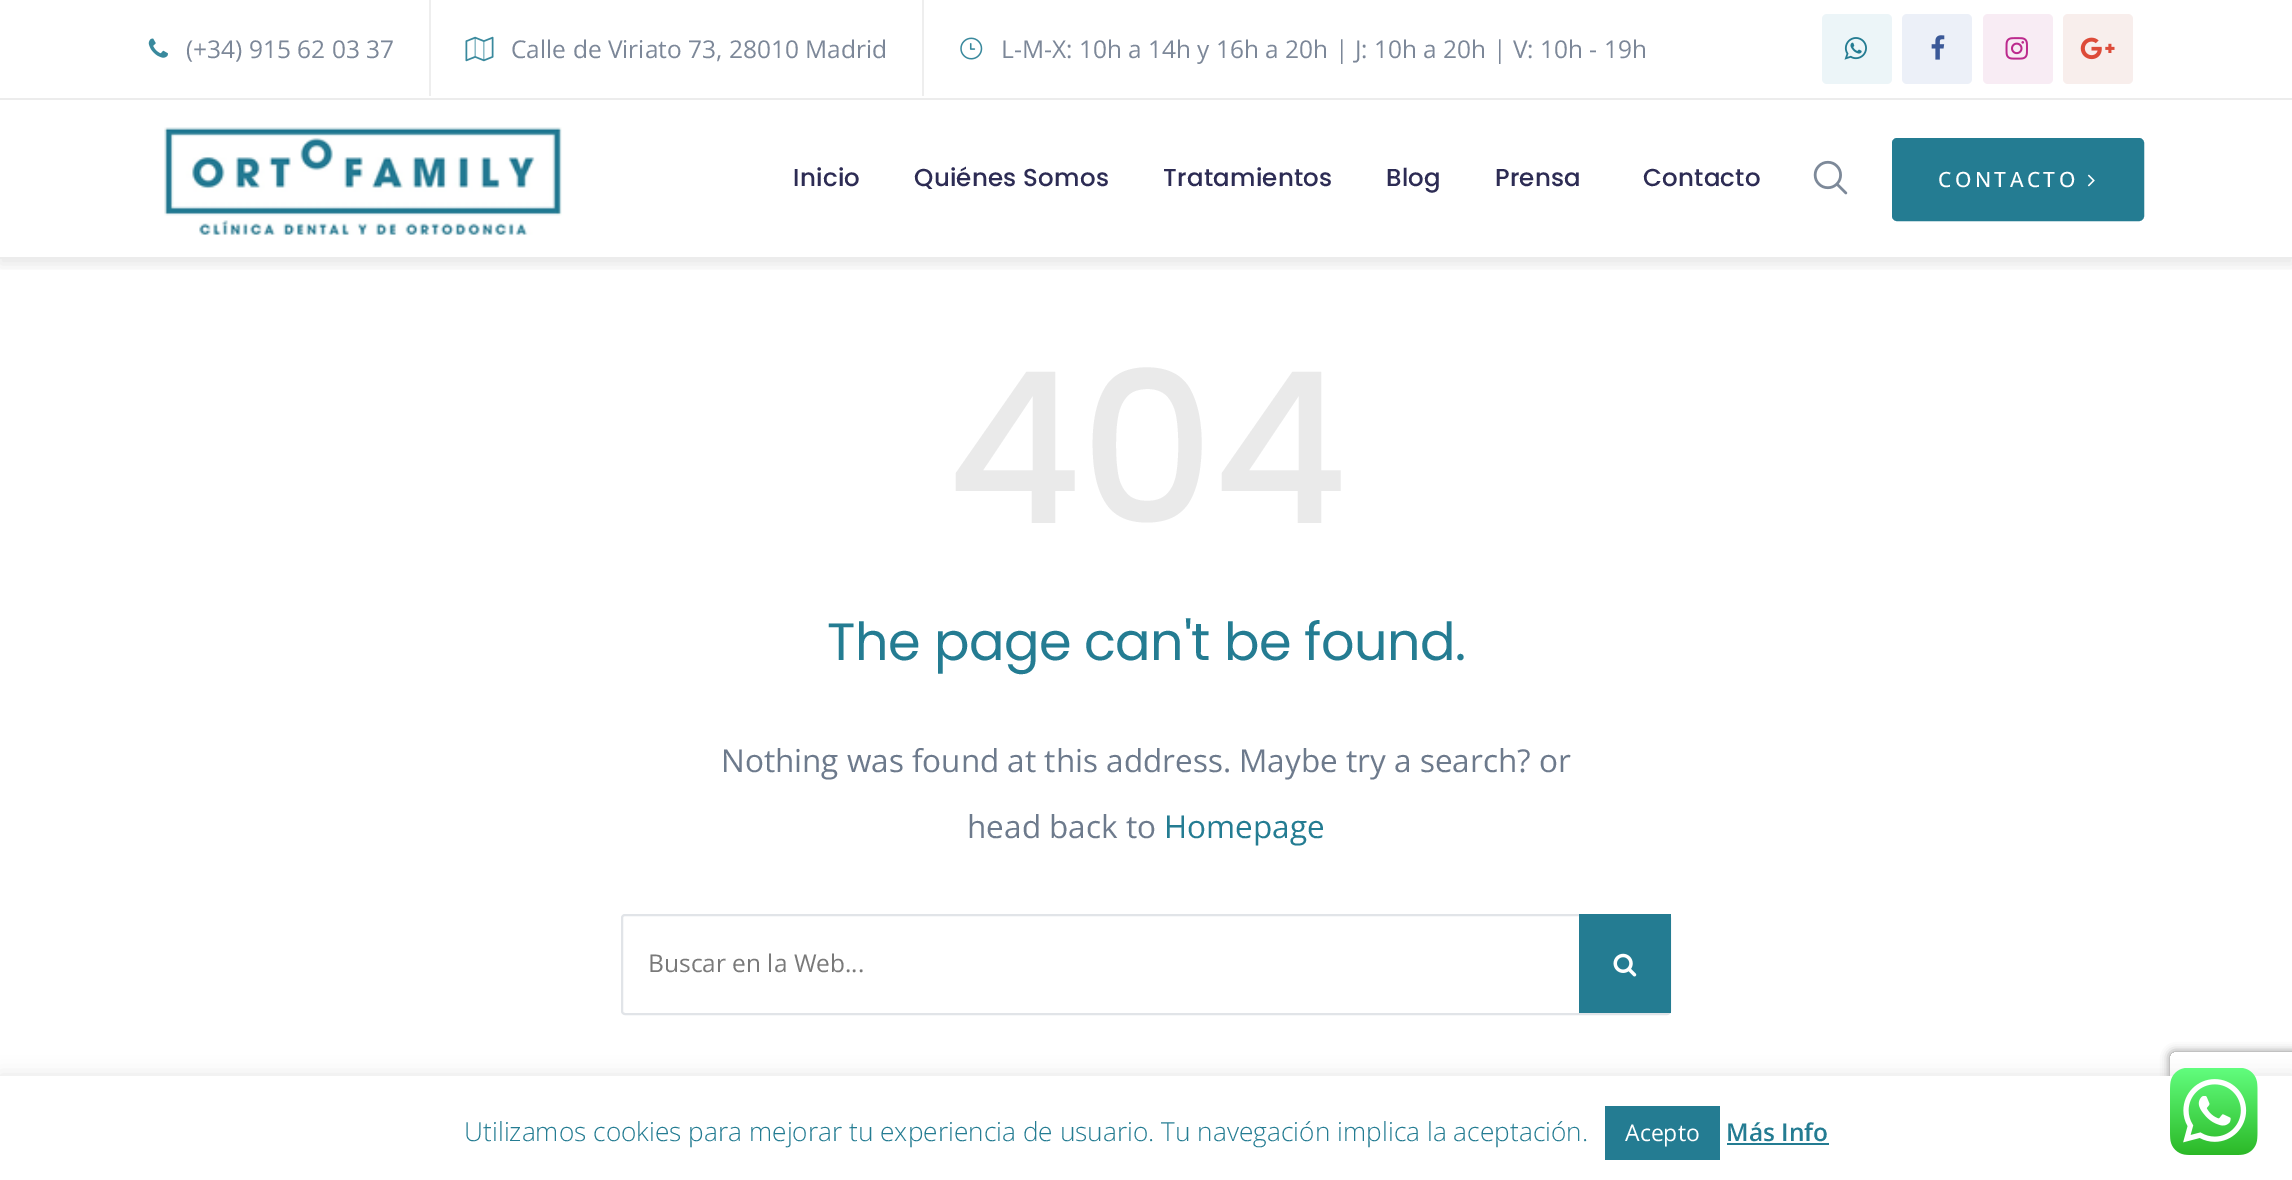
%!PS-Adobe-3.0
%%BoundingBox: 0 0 2292 1180
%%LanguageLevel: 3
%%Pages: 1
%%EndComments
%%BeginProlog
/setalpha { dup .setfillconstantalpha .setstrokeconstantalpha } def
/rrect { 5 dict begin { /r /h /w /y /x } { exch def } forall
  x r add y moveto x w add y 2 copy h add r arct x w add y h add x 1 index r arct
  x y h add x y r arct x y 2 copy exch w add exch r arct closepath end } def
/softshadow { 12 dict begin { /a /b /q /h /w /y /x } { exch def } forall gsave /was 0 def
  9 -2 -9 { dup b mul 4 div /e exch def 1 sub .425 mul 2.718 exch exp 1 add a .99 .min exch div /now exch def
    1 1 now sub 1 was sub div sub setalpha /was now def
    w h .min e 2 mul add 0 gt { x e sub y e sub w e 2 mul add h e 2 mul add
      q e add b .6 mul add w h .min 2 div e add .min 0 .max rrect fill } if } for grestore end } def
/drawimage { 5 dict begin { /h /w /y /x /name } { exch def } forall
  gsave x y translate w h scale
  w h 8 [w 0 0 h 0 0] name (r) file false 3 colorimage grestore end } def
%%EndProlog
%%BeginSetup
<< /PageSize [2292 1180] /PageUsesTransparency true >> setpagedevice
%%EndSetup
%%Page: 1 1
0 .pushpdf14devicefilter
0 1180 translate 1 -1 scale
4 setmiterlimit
1 setgray
0 0 2292 1180 rectfill
0.925 setgray
0 98 2292 2 rectfill
0.933 setgray
429 0 2 96 rectfill
(images/1.raw) 148 38 20 20 drawimage
922 0 2 96 rectfill
(images/2.raw) 465 36 29 26 drawimage
(images/3.raw) 960 37 23 23 drawimage
0.925 0.961 0.973 setrgbcolor
1822 14 70 70 5 rrect fill
(images/4.raw) 1844 37 23 23 drawimage
0.925 0.941 0.973 setrgbcolor
1902 14 70 70 5 rrect fill
(images/5.raw) 1931 35 14 25 drawimage
0.973 0.925 0.957 setrgbcolor
1983 14 70 70 5 rrect fill
(images/6.raw) 2005 37 23 23 drawimage
0.973 0.933 0.925 setrgbcolor
2063 14 70 70 5 rrect fill
(images/7.raw) 2080 37 35 23 drawimage
gsave
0 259 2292 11 rectclip
0 setgray
0 105 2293 159 0 7 0.1 softshadow
grestore
0.925 setgray
0 257 2292 2 rectfill
(images/8.raw) 164 127 398 108 drawimage
(images/9.raw) 1813 160 35 35 drawimage
0.141 0.486 0.573 setrgbcolor
1893 139 250 81 4 rrect gsave fill grestore
2 setlinewidth
stroke
(images/10.raw) 2087 174 8 13 drawimage
0.882 0.894 0.91 setrgbcolor
622 915 1048 99 3 rrect stroke
0.141 0.486 0.573 setrgbcolor
1579 914 92 99 rectfill
(images/11.raw) 1613 953 24 24 drawimage
gsave
newpath 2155 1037 moveto 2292 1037 lineto 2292 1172 lineto 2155 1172 lineto closepath 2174 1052 moveto 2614 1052 lineto 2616 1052 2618 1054 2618 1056 curveto 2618 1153 lineto 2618 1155 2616 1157 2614 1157 curveto 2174 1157 lineto 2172 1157 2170 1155 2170 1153 curveto 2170 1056 lineto 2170 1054 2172 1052 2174 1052 curveto closepath eoclip newpath
0.502 setgray
2170 1052 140 105 4 4.5 1 softshadow
grestore
0.675 0.671 0.671 setrgbcolor
0 1075 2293 105 0 9 0.3 softshadow
1 setgray
0 1076 2292 104 rectfill
0.141 0.486 0.573 setrgbcolor
1605 1106 115 54 rectfill
1727 1143 102 2 rectfill
(images/12.raw) 2170 1068 88 87 drawimage
/OpenSans-Regular [24.5 0 0 -24.5 0 0] selectfont
0.486 0.529 0.596 setrgbcolor
186 58 moveto (\(+34\) 915 62 03 37) show
511 58 moveto (Calle de Viriato 73, 28010 Madrid) show
1001 58 moveto (L-M-X: 10h a 14h y 16h a 20h | J: 10h a 20h | V: 10h - 19h) show
/Poppins-Medium [24.5 0 0 -24.5 0 0] selectfont
0.176 0.173 0.329 setrgbcolor
793 186 moveto 0.25 0 (Inicio) ashow
914 186 moveto 0.25 0 (Quiénes Somos) ashow
1163 186 moveto 0.25 0 (Tratamientos) ashow
1386 186 moveto 0.25 0 (Blog) ashow
1495 186 moveto 0.25 0 (Prensa) ashow
1643 186 moveto 0.25 0 (Contacto) ashow
/OpenSans-Medium [21 0 0 -21 0 0] selectfont
1 setgray
1938 187 moveto 3.5 0 (CONTACTO) ashow
/Poppins-Medium [210 0 0 -210 0 0] selectfont
0.918 setgray
946 523 moveto -2 0 (404) ashow
/Poppins-Regular [52.5 0 0 -52.5 0 0] selectfont
0.141 0.486 0.573 setrgbcolor
827 660 moveto -0.5 0 (The page can't be found.) ashow
/OpenSans-Regular [31.5 0 0 -31.5 0 0] selectfont
0.427 0.478 0.549 setrgbcolor
721 772 moveto (Nothing was found at this address. Maybe try a search? or) show
967 838 moveto (head back to) show
0.141 0.486 0.573 setrgbcolor
1164 838 moveto (Homepage) show
/OpenSans-Regular [24.5 0 0 -24.5 0 0] selectfont
0.475 setgray
648 972 moveto (Buscar en la Web...) show
/OpenSans-Light [26.25 0 0 -26.25 0 0] selectfont
0.141 0.486 0.573 setrgbcolor
464 1141 moveto (Utilizamos cookies para mejorar tu experiencia de usuario. Tu navegación implica la aceptación.) show
/OpenSans-Regular [23 0 0 -23 0 0] selectfont
1 setgray
1625 1141 moveto (Acepto) show
/OpenSans-SemiBold [24.5 0 0 -24.5 0 0] selectfont
0.141 0.486 0.573 setrgbcolor
1726 1141 moveto (Más Info) show
.poppdf14devicefilter showpage
%%EOF
